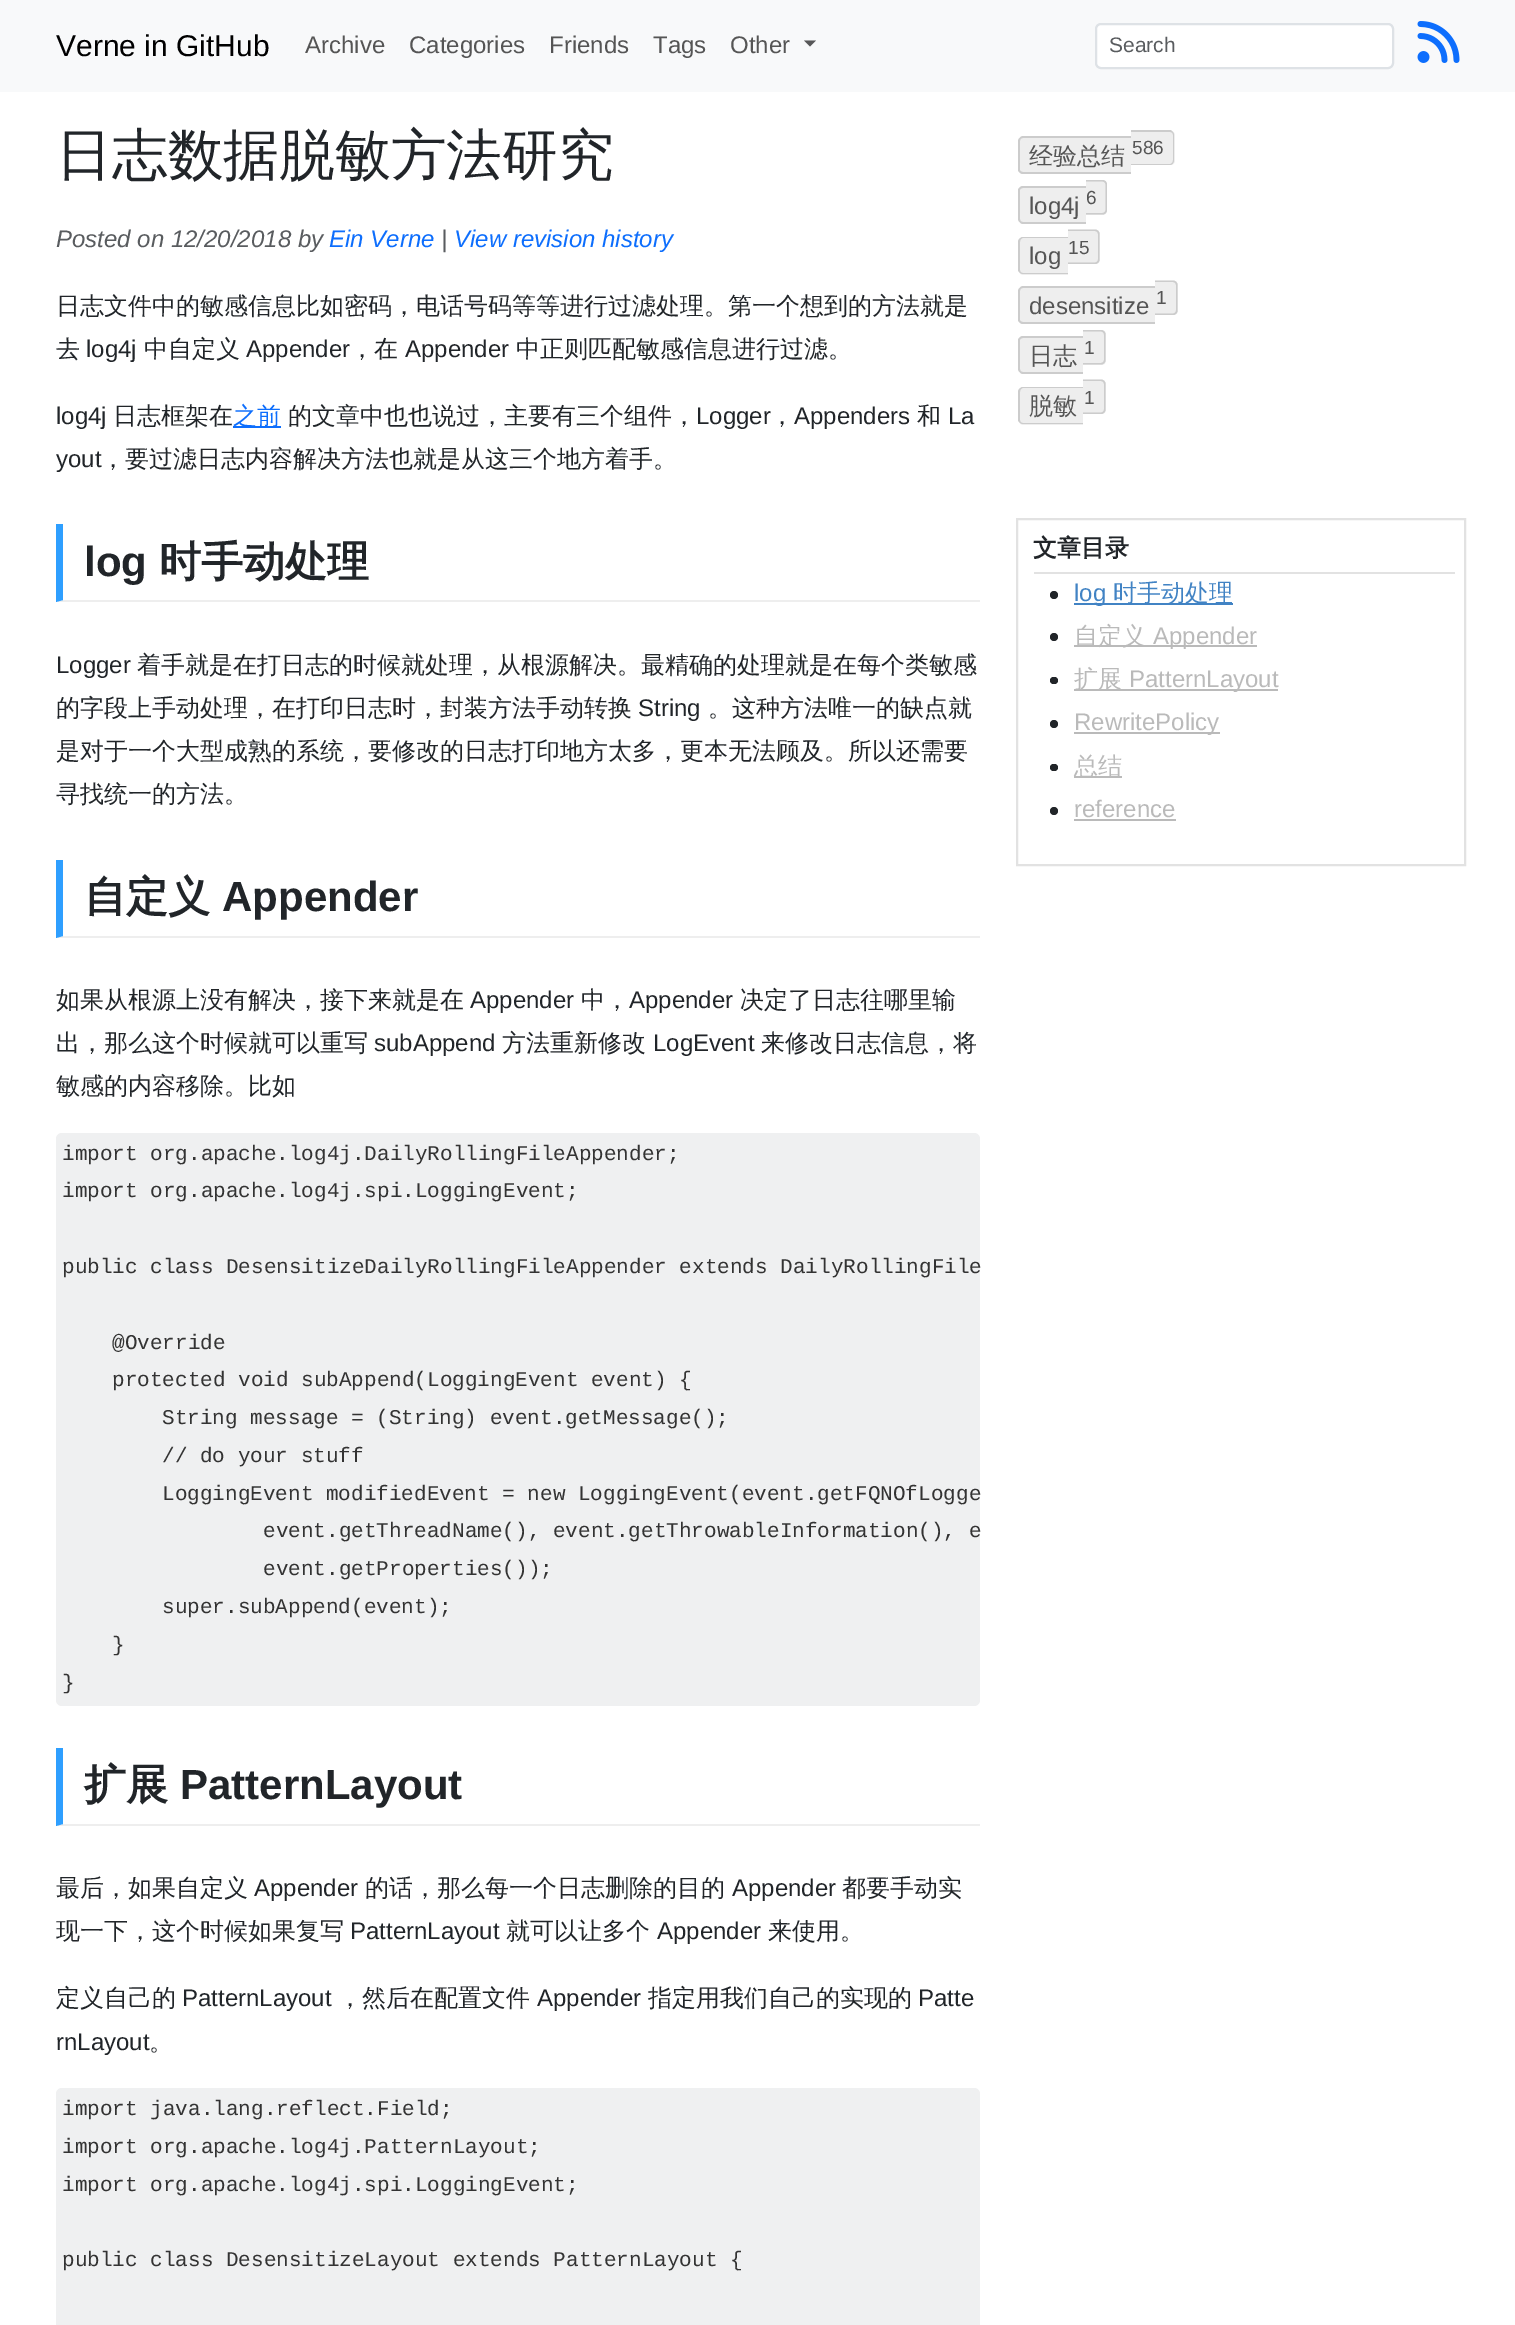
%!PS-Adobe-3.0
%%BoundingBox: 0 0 1515 2325
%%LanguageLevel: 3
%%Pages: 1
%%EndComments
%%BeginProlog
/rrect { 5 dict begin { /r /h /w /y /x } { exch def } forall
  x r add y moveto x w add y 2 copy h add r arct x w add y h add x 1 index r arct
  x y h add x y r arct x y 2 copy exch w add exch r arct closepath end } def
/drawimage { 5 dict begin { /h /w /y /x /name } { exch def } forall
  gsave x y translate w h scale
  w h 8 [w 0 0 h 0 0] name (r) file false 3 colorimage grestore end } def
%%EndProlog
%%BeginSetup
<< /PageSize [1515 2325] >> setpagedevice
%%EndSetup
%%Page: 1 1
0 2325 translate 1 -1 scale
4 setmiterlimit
1 setgray
0 0 1515 2325 rectfill
0.973 0.976 0.98 setrgbcolor
0 0 1515 92 rectfill
0.341 0.341 0.345 setrgbcolor
newpath 804 40.5 moveto 816 40.5 lineto 810 46.5 lineto closepath fill
1 setgray
1096 24 297 44 5 rrect gsave fill grestore
0.871 0.886 0.902 setrgbcolor
2 setlinewidth
stroke
(images/1.raw) 1417 21 43 42 drawimage
0.051 0.431 0.992 setrgbcolor
233 426 48 2 rectfill
0.933 setgray
newpath 980 602 moveto 56 602 lineto 63 600 lineto 980 600 lineto closepath fill
0.18 0.624 1 setrgbcolor
newpath 56 602 moveto 56 524 lineto 63 524 lineto 63 600 lineto closepath fill
0.933 setgray
newpath 980 938 moveto 56 938 lineto 63 936 lineto 980 936 lineto closepath fill
0.18 0.624 1 setrgbcolor
newpath 56 938 moveto 56 860 lineto 63 860 lineto 63 936 lineto closepath fill
0.937 0.941 0.945 setrgbcolor
56 1133 924 573 6 rrect fill
0.933 setgray
newpath 980 1826 moveto 56 1826 lineto 63 1824 lineto 980 1824 lineto closepath fill
0.18 0.624 1 setrgbcolor
newpath 56 1826 moveto 56 1748 lineto 63 1748 lineto 63 1824 lineto closepath fill
0.937 0.941 0.945 setrgbcolor
56 2088 924 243 6 rrect fill
0.933 setgray
newpath 1024 137 moveto 1131 137 lineto 1131 174 lineto 1024 174 lineto 1021 174 1019 172 1019 169 curveto 1019 142 lineto 1019 139 1021 137 1024 137 curveto closepath fill
0.8 setgray
newpath 1023 136 moveto 1131 136 lineto 1131 174 lineto 1023 174 lineto 1021 174 1018 172 1018 170 curveto 1018 141 lineto 1018 139 1021 136 1023 136 curveto closepath 1023 138 moveto 1131 138 lineto 1131 172 lineto 1023 172 lineto 1021 172 1020 171 1020 170 curveto 1020 141 lineto 1020 139 1021 138 1023 138 curveto closepath eofill
0.933 setgray
newpath 1131 131 moveto 1170 131 lineto 1173 131 1175 133 1175 136 curveto 1175 160 lineto 1175 163 1173 165 1170 165 curveto 1131 165 lineto closepath fill
0.8 setgray
newpath 1131 130 moveto 1170 130 lineto 1172 130 1174 133 1174 135 curveto 1174 160 lineto 1174 163 1172 165 1170 165 curveto 1131 165 lineto closepath 1131 132 moveto 1170 132 lineto 1172 132 1173 133 1173 135 curveto 1173 160 lineto 1173 162 1172 164 1170 164 curveto 1131 164 lineto closepath eofill
0.933 setgray
newpath 1024 186 moveto 1086 186 lineto 1086 224 lineto 1024 224 lineto 1021 224 1019 222 1019 219 curveto 1019 191 lineto 1019 188 1021 186 1024 186 curveto closepath fill
0.8 setgray
newpath 1023 186 moveto 1086 186 lineto 1086 224 lineto 1023 224 lineto 1021 224 1018 221 1018 219 curveto 1018 190 lineto 1018 188 1021 186 1023 186 curveto closepath 1023 188 moveto 1086 188 lineto 1086 222 lineto 1023 222 lineto 1021 222 1020 221 1020 219 curveto 1020 190 lineto 1020 189 1021 188 1023 188 curveto closepath eofill
0.933 setgray
newpath 1086 180 moveto 1102 180 lineto 1105 180 1107 182 1107 185 curveto 1107 210 lineto 1107 213 1105 215 1102 215 curveto 1086 215 lineto closepath fill
0.8 setgray
newpath 1086 180 moveto 1102.5 180 lineto 1105 180 1107 182 1107 184.5 curveto 1107 210 lineto 1107 212.5 1105 214.5 1102.5 214.5 curveto 1086 214.5 lineto closepath 1086 181.5 moveto 1102.5 181.5 lineto 1104 181.5 1105.5 183 1105.5 184.5 curveto 1105.5 210 lineto 1105.5 211.5 1104 213 1102.5 213 curveto 1086 213 lineto closepath eofill
0.933 setgray
newpath 1024 237 moveto 1068 237 lineto 1068 275 lineto 1024 275 lineto 1021 275 1019 273 1019 270 curveto 1019 242 lineto 1019 239 1021 237 1024 237 curveto closepath fill
0.8 setgray
newpath 1023 237 moveto 1068 237 lineto 1068 274 lineto 1023 274 lineto 1021 274 1018 272 1018 270 curveto 1018 242 lineto 1018 239 1021 237 1023 237 curveto closepath 1023 238 moveto 1068 238 lineto 1068 273 lineto 1023 273 lineto 1021 273 1020 272 1020 270 curveto 1020 242 lineto 1020 240 1021 238 1023 238 curveto closepath eofill
0.933 setgray
newpath 1068 230 moveto 1095 230 lineto 1098 230 1100 232 1100 235 curveto 1100 259 lineto 1100 262 1098 264 1095 264 curveto 1068 264 lineto closepath fill
0.8 setgray
newpath 1068 229.5 moveto 1095 229.5 lineto 1097.5 229.5 1099.5 231.5 1099.5 234 curveto 1099.5 259.5 lineto 1099.5 262 1097.5 264 1095 264 curveto 1068 264 lineto closepath 1068 231 moveto 1095 231 lineto 1096.5 231 1098 232.5 1098 234 curveto 1098 259.5 lineto 1098 261 1096.5 262.5 1095 262.5 curveto 1068 262.5 lineto closepath eofill
0.933 setgray
newpath 1024 287 moveto 1155 287 lineto 1155 324 lineto 1024 324 lineto 1021 324 1019 322 1019 319 curveto 1019 292 lineto 1019 289 1021 287 1024 287 curveto closepath fill
0.8 setgray
newpath 1023 286 moveto 1155 286 lineto 1155 324 lineto 1023 324 lineto 1021 324 1018 322 1018 320 curveto 1018 291 lineto 1018 289 1021 286 1023 286 curveto closepath 1023 288 moveto 1155 288 lineto 1155 322 lineto 1023 322 lineto 1021 322 1020 321 1020 320 curveto 1020 291 lineto 1020 289 1021 288 1023 288 curveto closepath eofill
0.933 setgray
newpath 1155 281 moveto 1173 281 lineto 1176 281 1178 283 1178 286 curveto 1178 310 lineto 1178 313 1176 315 1173 315 curveto 1155 315 lineto closepath fill
0.8 setgray
newpath 1155 280.5 moveto 1173 280.5 lineto 1175.5 280.5 1177.5 282.5 1177.5 285 curveto 1177.5 310.5 lineto 1177.5 313 1175.5 315 1173 315 curveto 1155 315 lineto closepath 1155 282 moveto 1173 282 lineto 1174.5 282 1176 283.5 1176 285 curveto 1176 310.5 lineto 1176 312 1174.5 313.5 1173 313.5 curveto 1155 313.5 lineto closepath eofill
0.933 setgray
newpath 1024 336 moveto 1083 336 lineto 1083 374 lineto 1024 374 lineto 1021 374 1019 372 1019 369 curveto 1019 341 lineto 1019 338 1021 336 1024 336 curveto closepath fill
0.8 setgray
newpath 1023 336 moveto 1083 336 lineto 1083 374 lineto 1023 374 lineto 1021 374 1018 371 1018 369 curveto 1018 340 lineto 1018 338 1021 336 1023 336 curveto closepath 1023 338 moveto 1083 338 lineto 1083 372 lineto 1023 372 lineto 1021 372 1020 371 1020 369 curveto 1020 340 lineto 1020 339 1021 338 1023 338 curveto closepath eofill
0.933 setgray
newpath 1083 330 moveto 1101 330 lineto 1104 330 1106 332 1106 335 curveto 1106 360 lineto 1106 363 1104 365 1101 365 curveto 1083 365 lineto closepath fill
0.8 setgray
newpath 1083 330 moveto 1101 330 lineto 1103.5 330 1105.5 332 1105.5 334.5 curveto 1105.5 360 lineto 1105.5 362.5 1103.5 364.5 1101 364.5 curveto 1083 364.5 lineto closepath 1083 331.5 moveto 1101 331.5 lineto 1102.5 331.5 1104 333 1104 334.5 curveto 1104 360 lineto 1104 361.5 1102.5 363 1101 363 curveto 1083 363 lineto closepath eofill
0.933 setgray
newpath 1024 387 moveto 1083 387 lineto 1083 425 lineto 1024 425 lineto 1021 425 1019 423 1019 420 curveto 1019 392 lineto 1019 389 1021 387 1024 387 curveto closepath fill
0.8 setgray
newpath 1023 387 moveto 1083 387 lineto 1083 424 lineto 1023 424 lineto 1021 424 1018 422 1018 420 curveto 1018 392 lineto 1018 389 1021 387 1023 387 curveto closepath 1023 388 moveto 1083 388 lineto 1083 423 lineto 1023 423 lineto 1021 423 1020 422 1020 420 curveto 1020 392 lineto 1020 390 1021 388 1023 388 curveto closepath eofill
0.933 setgray
newpath 1083 380 moveto 1101 380 lineto 1104 380 1106 382 1106 385 curveto 1106 409 lineto 1106 412 1104 414 1101 414 curveto 1083 414 lineto closepath fill
0.8 setgray
newpath 1083 379.5 moveto 1101 379.5 lineto 1103.5 379.5 1105.5 381.5 1105.5 384 curveto 1105.5 409.5 lineto 1105.5 412 1103.5 414 1101 414 curveto 1083 414 lineto closepath 1083 381 moveto 1101 381 lineto 1102.5 381 1104 382.5 1104 384 curveto 1104 409.5 lineto 1104 411 1102.5 412.5 1101 412.5 curveto 1083 412.5 lineto closepath eofill
0.886 setgray
1017 519 448 346 rectstroke
1034 572 421 2 rectfill
0.129 0.145 0.161 setrgbcolor
newpath 1054 595 4 0 360 arc closepath fill
0.255 0.514 0.769 setrgbcolor
1074 603 159 2 rectfill
0.129 0.145 0.161 setrgbcolor
newpath 1054 637 4 0 360 arc closepath fill
0.729 setgray
1074 645 183 2 rectfill
0.129 0.145 0.161 setrgbcolor
1050 677 8 7 3.5 rrect fill
0.729 setgray
1074 689 204 2 rectfill
0.129 0.145 0.161 setrgbcolor
newpath 1054 724 4 0 360 arc closepath fill
0.729 setgray
1074 732 146 2 rectfill
0.129 0.145 0.161 setrgbcolor
1050 764 8 7 3.5 rrect fill
0.729 setgray
1074 776 48 2 rectfill
0.129 0.145 0.161 setrgbcolor
newpath 1054 811 4 0 360 arc closepath fill
0.729 setgray
1074 819 102 2 rectfill
/LiberationSans-Regular [30 0 0 -30 0 0] selectfont
0 setgray
56 56 moveto (Verne in GitHub) show
/LiberationSans-Regular [24 0 0 -24 0 0] selectfont
0.333 setgray
305 53 moveto (Archive) show
409 53 moveto (Categories) show
549 53 moveto (Friends) show
653 53 moveto (Tags) show
730 53 moveto (Other) show
/LiberationSans-Regular [21 0 0 -21 0 0] selectfont
0.349 0.361 0.373 setrgbcolor
1109 52 moveto (Search) show
/WenQuanYiZenHei-Medium [55.75 0 0 -55.75 0 0] selectfont
0.129 0.145 0.161 setrgbcolor
56 174 moveto (日志数据脱敏方法研究) show
/LiberationSans-Italic [24 0 0 -24 0 0] selectfont
0.349 0.361 0.373 setrgbcolor
56 247 moveto (Posted on 12/20/2018 by) show
0.051 0.431 0.992 setrgbcolor
329 247 moveto (Ein Verne) show
0.349 0.361 0.373 setrgbcolor
441 247 moveto (|) show
0.051 0.431 0.992 setrgbcolor
454 247 moveto (View revision history) show
/WenQuanYiZenHei-Medium [24 0 0 -24 0 0] selectfont
0.129 0.145 0.161 setrgbcolor
56 314 moveto (日志文件中的敏感信息比如密码，电话号码等等进行过滤处理。第一个想到的方法就是) show
56 357 moveto (去) show
/LiberationSans-Regular [24 0 0 -24 0 0] selectfont
86 357 moveto (log4j) show
/WenQuanYiZenHei-Medium [24 0 0 -24 0 0] selectfont
144 357 moveto (中自定义) show
/LiberationSans-Regular [24 0 0 -24 0 0] selectfont
246 357 moveto (Appender) show
/WenQuanYiZenHei-Medium [24 0 0 -24 0 0] selectfont
350 357 moveto (，在) show
/LiberationSans-Regular [24 0 0 -24 0 0] selectfont
405 357 moveto (Appender) show
/WenQuanYiZenHei-Medium [24 0 0 -24 0 0] selectfont
516 357 moveto (中正则匹配敏感信息进行过滤。) show
/LiberationSans-Regular [24 0 0 -24 0 0] selectfont
56 424 moveto (log4j) show
/WenQuanYiZenHei-Medium [24 0 0 -24 0 0] selectfont
113 424 moveto (日志框架在) show
0.051 0.431 0.992 setrgbcolor
233 424 moveto (之前) show
0.129 0.145 0.161 setrgbcolor
288 424 moveto (的文章中也也说过，主要有三个组件，) show
/LiberationSans-Regular [24 0 0 -24 0 0] selectfont
696 424 moveto (Logger) show
/WenQuanYiZenHei-Medium [24 0 0 -24 0 0] selectfont
770 424 moveto (，) show
/LiberationSans-Regular [24 0 0 -24 0 0] selectfont
794 424 moveto (Appenders) show
/WenQuanYiZenHei-Medium [24 0 0 -24 0 0] selectfont
917 424 moveto (和) show
/LiberationSans-Regular [24 0 0 -24 0 0] selectfont
948 424 moveto (La) show
56 467 moveto (yout) show
/WenQuanYiZenHei-Medium [24 0 0 -24 0 0] selectfont
101 467 moveto (，要过滤日志内容解决方法也就是从这三个地方着手。) show
/LiberationSans-Bold [42 0 0 -42 0 0] selectfont
84 576 moveto (log) show
/WenQuanYiZenHei-Bold [42 0 0 -42 0 0] selectfont
159 576 moveto (时手动处理) show
/LiberationSans-Regular [24 0 0 -24 0 0] selectfont
56 673 moveto (Logger) show
/WenQuanYiZenHei-Medium [24 0 0 -24 0 0] selectfont
137 673 moveto (着手就是在打日志的时候就处理，从根源解决。最精确的处理就是在每个类敏感) show
56 716 moveto (的字段上手动处理，在打印日志时，封装方法手动转换) show
/LiberationSans-Regular [24 0 0 -24 0 0] selectfont
638 716 moveto (String) show
/WenQuanYiZenHei-Medium [24 0 0 -24 0 0] selectfont
708 716 moveto (。这种方法唯一的缺点就) show
56 759 moveto (是对于一个大型成熟的系统，要修改的日志打印地方太多，更本无法顾及。所以还需要) show
56 802 moveto (寻找统一的方法。) show
/WenQuanYiZenHei-Bold [42 0 0 -42 0 0] selectfont
84 911 moveto (自定义) show
/LiberationSans-Bold [42 0 0 -42 0 0] selectfont
222 911 moveto (Appender) show
/WenQuanYiZenHei-Medium [24 0 0 -24 0 0] selectfont
56 1008 moveto (如果从根源上没有解决，接下来就是在) show
/LiberationSans-Regular [24 0 0 -24 0 0] selectfont
470 1008 moveto (Appender) show
/WenQuanYiZenHei-Medium [24 0 0 -24 0 0] selectfont
581 1008 moveto (中，) show
/LiberationSans-Regular [24 0 0 -24 0 0] selectfont
629 1008 moveto (Appender) show
/WenQuanYiZenHei-Medium [24 0 0 -24 0 0] selectfont
740 1008 moveto (决定了日志往哪里输) show
56 1051 moveto (出，那么这个时候就可以重写) show
/LiberationSans-Regular [24 0 0 -24 0 0] selectfont
374 1051 moveto (subAppend) show
/WenQuanYiZenHei-Medium [24 0 0 -24 0 0] selectfont
502 1051 moveto (方法重新修改) show
/LiberationSans-Regular [24 0 0 -24 0 0] selectfont
653 1051 moveto (LogEvent) show
/WenQuanYiZenHei-Medium [24 0 0 -24 0 0] selectfont
761 1051 moveto (来修改日志信息，将) show
56 1094 moveto (敏感的内容移除。比如) show
/LiberationMono-Regular [21 0 0 -21 0 0] selectfont
0.2 setgray
62 1160 moveto (import org.apache.log4j.DailyRollingFileAppender;) show
62 1197 moveto (import org.apache.log4j.spi.LoggingEvent;) show
62 1273 moveto (public class DesensitizeDailyRollingFileAppender extends DailyRollingFile) show
112 1349 moveto (@Override) show
112 1386 moveto (protected void subAppend\(LoggingEvent event\) {) show
162 1424 moveto (String message = \(String\) event.getMessage\(\);) show
162 1462 moveto (// do your stuff) show
162 1500 moveto (LoggingEvent modifiedEvent = new LoggingEvent\(event.getFQNOfLogge) show
263 1537 moveto (event.getThreadName\(\), event.getThrowableInformation\(\), e) show
263 1575 moveto (event.getProperties\(\)\);) show
162 1613 moveto (super.subAppend\(event\);) show
112 1651 moveto (}) show
62 1689 moveto (}) show
/WenQuanYiZenHei-Bold [42 0 0 -42 0 0] selectfont
0.129 0.145 0.161 setrgbcolor
84 1799 moveto (扩展) show
/LiberationSans-Bold [42 0 0 -42 0 0] selectfont
180 1799 moveto (PatternLayout) show
/WenQuanYiZenHei-Medium [24 0 0 -24 0 0] selectfont
56 1896 moveto (最后，如果自定义) show
/LiberationSans-Regular [24 0 0 -24 0 0] selectfont
254 1896 moveto (Appender) show
/WenQuanYiZenHei-Medium [24 0 0 -24 0 0] selectfont
365 1896 moveto (的话，那么每一个日志删除的目的) show
/LiberationSans-Regular [24 0 0 -24 0 0] selectfont
732 1896 moveto (Appender) show
/WenQuanYiZenHei-Medium [24 0 0 -24 0 0] selectfont
842 1896 moveto (都要手动实) show
56 1939 moveto (现一下，这个时候如果复写) show
/LiberationSans-Regular [24 0 0 -24 0 0] selectfont
350 1939 moveto (PatternLayout) show
/WenQuanYiZenHei-Medium [24 0 0 -24 0 0] selectfont
506 1939 moveto (就可以让多个) show
/LiberationSans-Regular [24 0 0 -24 0 0] selectfont
657 1939 moveto (Appender) show
/WenQuanYiZenHei-Medium [24 0 0 -24 0 0] selectfont
768 1939 moveto (来使用。) show
56 2006 moveto (定义自己的) show
/LiberationSans-Regular [24 0 0 -24 0 0] selectfont
182 2006 moveto (PatternLayout) show
/WenQuanYiZenHei-Medium [24 0 0 -24 0 0] selectfont
338 2006 moveto (，然后在配置文件) show
/LiberationSans-Regular [24 0 0 -24 0 0] selectfont
537 2006 moveto (Appender) show
/WenQuanYiZenHei-Medium [24 0 0 -24 0 0] selectfont
648 2006 moveto (指定用我们自己的实现的) show
/LiberationSans-Regular [24 0 0 -24 0 0] selectfont
918 2006 moveto (Patte) show
56 2050 moveto (rnLayout) show
/WenQuanYiZenHei-Medium [24 0 0 -24 0 0] selectfont
149 2050 moveto (。) show
/LiberationMono-Regular [21 0 0 -21 0 0] selectfont
0.2 setgray
62 2115 moveto (import java.lang.reflect.Field;) show
62 2153 moveto (import org.apache.log4j.PatternLayout;) show
62 2191 moveto (import org.apache.log4j.spi.LoggingEvent;) show
62 2266 moveto (public class DesensitizeLayout extends PatternLayout {) show
/WenQuanYiZenHei-Medium [24 0 0 -24 0 0] selectfont
0.333 setgray
1029 164 moveto (经验总结) show
/LiberationSans-Regular [19 0 0 -19 0 0] selectfont
1132 154 moveto (586) show
/LiberationSans-Regular [24 0 0 -24 0 0] selectfont
1029 214 moveto (log4j) show
/LiberationSans-Regular [19 0 0 -19 0 0] selectfont
1086 204 moveto (6) show
/LiberationSans-Regular [24 0 0 -24 0 0] selectfont
1029 264 moveto (log) show
/LiberationSans-Regular [19 0 0 -19 0 0] selectfont
1068 254 moveto (15) show
/LiberationSans-Regular [24 0 0 -24 0 0] selectfont
1029 314 moveto (desensitize) show
/LiberationSans-Regular [19 0 0 -19 0 0] selectfont
1156 304 moveto (1) show
/WenQuanYiZenHei-Medium [24 0 0 -24 0 0] selectfont
1029 364 moveto (日志) show
/LiberationSans-Regular [19 0 0 -19 0 0] selectfont
1084 354 moveto (1) show
/WenQuanYiZenHei-Medium [24 0 0 -24 0 0] selectfont
1029 414 moveto (脱敏) show
/LiberationSans-Regular [19 0 0 -19 0 0] selectfont
1084 404 moveto (1) show
/WenQuanYiZenHei-Bold [24 0 0 -24 0 0] selectfont
0.129 0.145 0.161 setrgbcolor
1033 556 moveto (文章目录) show
/LiberationSans-Regular [24 0 0 -24 0 0] selectfont
0.255 0.514 0.769 setrgbcolor
1074 601 moveto (log) show
/WenQuanYiZenHei-Medium [24 0 0 -24 0 0] selectfont
1113 601 moveto (时手动处理) show
0.729 setgray
1074 644 moveto (自定义) show
/LiberationSans-Regular [24 0 0 -24 0 0] selectfont
1153 644 moveto (Appender) show
/WenQuanYiZenHei-Medium [24 0 0 -24 0 0] selectfont
1074 687 moveto (扩展) show
/LiberationSans-Regular [24 0 0 -24 0 0] selectfont
1129 687 moveto (PatternLayout) show
1074 730 moveto (RewritePolicy) show
/WenQuanYiZenHei-Medium [24 0 0 -24 0 0] selectfont
1074 774 moveto (总结) show
/LiberationSans-Regular [24 0 0 -24 0 0] selectfont
1074 817 moveto (reference) show
showpage
%%EOF
